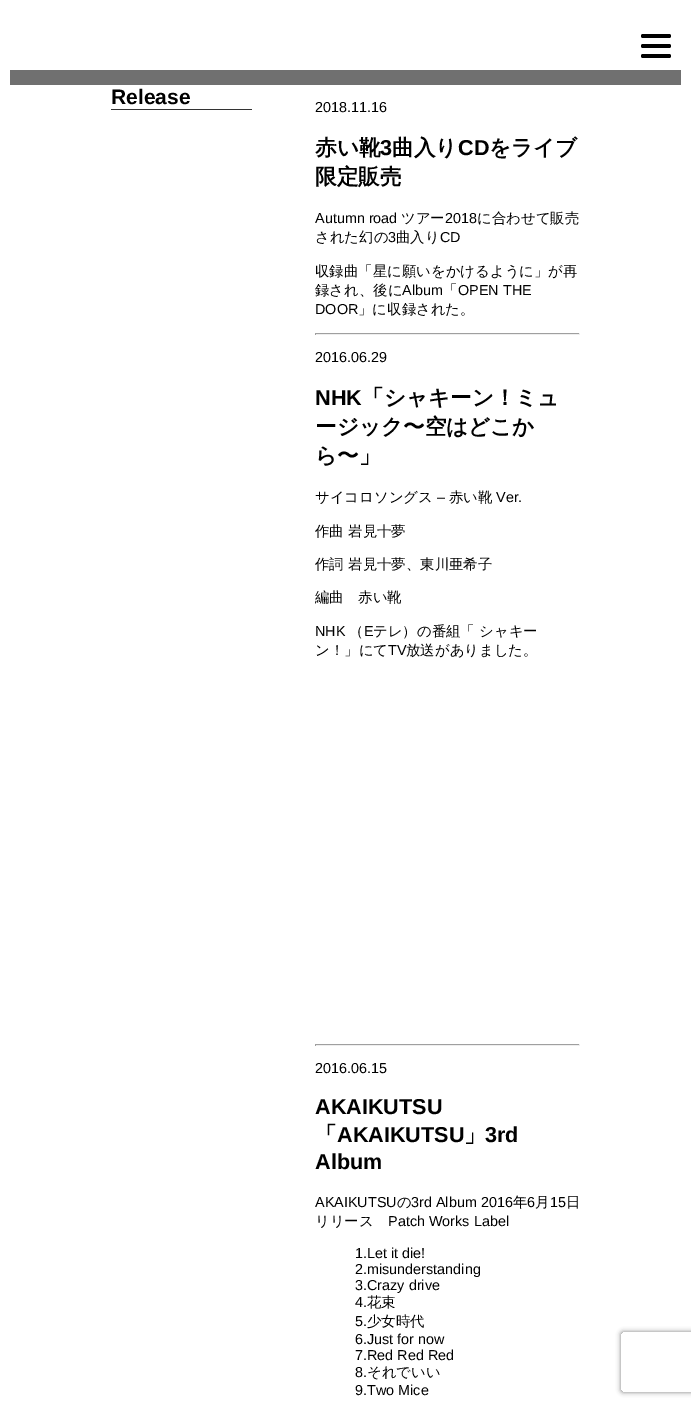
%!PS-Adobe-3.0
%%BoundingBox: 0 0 691 1406
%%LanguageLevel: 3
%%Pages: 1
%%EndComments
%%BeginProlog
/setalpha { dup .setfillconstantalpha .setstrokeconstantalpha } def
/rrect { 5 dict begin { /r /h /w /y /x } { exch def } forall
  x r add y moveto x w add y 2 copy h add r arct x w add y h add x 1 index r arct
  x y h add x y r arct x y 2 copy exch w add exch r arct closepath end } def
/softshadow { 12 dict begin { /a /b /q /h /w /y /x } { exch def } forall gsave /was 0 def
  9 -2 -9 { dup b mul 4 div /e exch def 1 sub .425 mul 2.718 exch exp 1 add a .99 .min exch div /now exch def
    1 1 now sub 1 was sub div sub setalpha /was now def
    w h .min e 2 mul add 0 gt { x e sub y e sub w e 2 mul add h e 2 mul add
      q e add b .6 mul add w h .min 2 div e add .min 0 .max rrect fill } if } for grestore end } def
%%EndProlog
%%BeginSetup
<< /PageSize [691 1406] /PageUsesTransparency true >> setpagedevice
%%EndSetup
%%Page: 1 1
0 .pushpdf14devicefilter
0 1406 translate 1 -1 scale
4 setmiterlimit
1 setgray
0 0 691 1406 rectfill
0 setgray
641 34 30 4 2 rrect fill
641 44 30 4 2 rrect fill
641 54 30 4 2 rrect fill
0.439 setgray
10 70 671 15 rectfill
0.2 setgray
111 109 141 1 rectfill
0.624 setgray
315 333 265 1 rectfill
0.933 setgray
579 333 1 2 rectfill
315 334 265 1 rectfill
0.624 setgray
315 333 1 2 rectfill
315 1044 265 1 rectfill
0.933 setgray
579 1044 1 2 rectfill
315 1045 265 1 rectfill
0.624 setgray
315 1044 1 2 rectfill
gsave
newpath 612 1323 moveto 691 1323 lineto 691 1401 lineto 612 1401 lineto closepath 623 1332 moveto 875 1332 lineto 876 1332 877 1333 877 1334 curveto 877 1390 lineto 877 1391 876 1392 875 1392 curveto 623 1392 lineto 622 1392 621 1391 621 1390 curveto 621 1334 lineto 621 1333 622 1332 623 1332 curveto closepath eoclip newpath
0.502 setgray
621 1332 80 60 2 2.5 1 softshadow
grestore
/LiberationSans-Bold [21 0 0 -21 0 0] selectfont
0 setgray
111 104 moveto (Release) show
/LiberationSans-Regular [14.4 0 0 -14.4 0 0] selectfont
315 112 moveto (2018.11.16) show
/WenQuanYiZenHei-Bold [21.6 0 0 -21.6 0 0] selectfont
315 155 moveto (赤い靴) show
/LiberationSans-Bold [21.6 0 0 -21.6 0 0] selectfont
380 155 moveto (3) show
/WenQuanYiZenHei-Bold [21.6 0 0 -21.6 0 0] selectfont
392 155 moveto (曲入り) show
/LiberationSans-Bold [21.6 0 0 -21.6 0 0] selectfont
458 155 moveto (CD) show
/WenQuanYiZenHei-Bold [21.6 0 0 -21.6 0 0] selectfont
489 155 moveto (をライブ) show
315 184 moveto (限定販売) show
/LiberationSans-Regular [14.4 0 0 -14.4 0 0] selectfont
315 223 moveto (Autumn road) show
/WenQuanYiZenHei-Medium [14.4 0 0 -14.4 0 0] selectfont
401 223 moveto (ツアー) show
/LiberationSans-Regular [14.4 0 0 -14.4 0 0] selectfont
445 223 moveto (2018) show
/WenQuanYiZenHei-Medium [14.4 0 0 -14.4 0 0] selectfont
477 223 moveto (に合わせて販売) show
315 242 moveto (された幻の) show
/LiberationSans-Regular [14.4 0 0 -14.4 0 0] selectfont
388 242 moveto (3) show
/WenQuanYiZenHei-Medium [14.4 0 0 -14.4 0 0] selectfont
396 242 moveto (曲入り) show
/LiberationSans-Regular [14.4 0 0 -14.4 0 0] selectfont
440 242 moveto (CD) show
/WenQuanYiZenHei-Medium [14.4 0 0 -14.4 0 0] selectfont
315 276 moveto (収録曲「星に願いをかけるように」が再) show
315 295 moveto (録され、後に) show
/LiberationSans-Regular [14.4 0 0 -14.4 0 0] selectfont
402 295 moveto (Album) show
/WenQuanYiZenHei-Medium [14.4 0 0 -14.4 0 0] selectfont
443 295 moveto (「) show
/LiberationSans-Regular [14.4 0 0 -14.4 0 0] selectfont
458 295 moveto (OPEN THE) show
315 314 moveto (DOOR) show
/WenQuanYiZenHei-Medium [14.4 0 0 -14.4 0 0] selectfont
358 314 moveto (」に収録された。) show
/LiberationSans-Regular [14.4 0 0 -14.4 0 0] selectfont
315 362 moveto (2016.06.29) show
/LiberationSans-Bold [21.6 0 0 -21.6 0 0] selectfont
315 405 moveto (NHK) show
/WenQuanYiZenHei-Bold [21.6 0 0 -21.6 0 0] selectfont
362 405 moveto (「シャキーン！ミュ) show
315 434 moveto (ージック〜空はどこか) show
315 463 moveto (ら〜」) show
/WenQuanYiZenHei-Medium [14.4 0 0 -14.4 0 0] selectfont
315 502 moveto (サイコロソングス) show
/LiberationSans-Regular [14.4 0 0 -14.4 0 0] selectfont
437 502 moveto (–) show
/WenQuanYiZenHei-Medium [14.4 0 0 -14.4 0 0] selectfont
449 502 moveto (赤い靴) show
/LiberationSans-Regular [14.4 0 0 -14.4 0 0] selectfont
496 502 moveto (Ver.) show
/WenQuanYiZenHei-Medium [14.4 0 0 -14.4 0 0] selectfont
315 536 moveto (作曲 岩見十夢) show
315 569 moveto (作詞 岩見十夢、東川亜希子) show
315 602 moveto (編曲　赤い靴) show
/LiberationSans-Regular [14.4 0 0 -14.4 0 0] selectfont
315 636 moveto (NHK) show
/WenQuanYiZenHei-Medium [14.4 0 0 -14.4 0 0] selectfont
349 636 moveto (（) show
/LiberationSans-Regular [14.4 0 0 -14.4 0 0] selectfont
364 636 moveto (E) show
/WenQuanYiZenHei-Medium [14.4 0 0 -14.4 0 0] selectfont
373 636 moveto (テレ）の番組「 シャキー) show
315 655 moveto (ン！」にて) show
/LiberationSans-Regular [14.4 0 0 -14.4 0 0] selectfont
388 655 moveto (TV) show
/WenQuanYiZenHei-Medium [14.4 0 0 -14.4 0 0] selectfont
406 655 moveto (放送がありました。) show
/LiberationSans-Regular [14.4 0 0 -14.4 0 0] selectfont
315 1073 moveto (2016.06.15) show
/LiberationSans-Bold [21.6 0 0 -21.6 0 0] selectfont
315 1114 moveto (AKAIKUTSU) show
/WenQuanYiZenHei-Bold [21.6 0 0 -21.6 0 0] selectfont
315 1142 moveto (「) show
/LiberationSans-Bold [21.6 0 0 -21.6 0 0] selectfont
337 1142 moveto (AKAIKUTSU) show
/WenQuanYiZenHei-Bold [21.6 0 0 -21.6 0 0] selectfont
464 1142 moveto (」) show
/LiberationSans-Bold [21.6 0 0 -21.6 0 0] selectfont
485 1142 moveto (3rd) show
315 1169 moveto (Album) show
/LiberationSans-Regular [14.4 0 0 -14.4 0 0] selectfont
315 1207 moveto (AKAIKUTSU) show
/WenQuanYiZenHei-Medium [14.4 0 0 -14.4 0 0] selectfont
397 1207 moveto (の) show
/LiberationSans-Regular [14.4 0 0 -14.4 0 0] selectfont
411 1207 moveto (3rd Album 2016) show
/WenQuanYiZenHei-Medium [14.4 0 0 -14.4 0 0] selectfont
513 1207 moveto (年) show
/LiberationSans-Regular [14.4 0 0 -14.4 0 0] selectfont
527 1207 moveto (6) show
/WenQuanYiZenHei-Medium [14.4 0 0 -14.4 0 0] selectfont
535 1207 moveto (月) show
/LiberationSans-Regular [14.4 0 0 -14.4 0 0] selectfont
550 1207 moveto (15) show
/WenQuanYiZenHei-Medium [14.4 0 0 -14.4 0 0] selectfont
566 1207 moveto (日) show
315 1226 moveto (リリース) show
/LiberationSans-Regular [14.4 0 0 -14.4 0 0] selectfont
388 1226 moveto (Patch Works Label) show
355 1258 moveto (1.Let it die!) show
355 1274 moveto (2.misunderstanding) show
355 1290 moveto (3.Crazy drive) show
355 1307 moveto (4.) show
/WenQuanYiZenHei-Medium [14.4 0 0 -14.4 0 0] selectfont
367 1307 moveto (花束) show
/LiberationSans-Regular [14.4 0 0 -14.4 0 0] selectfont
355 1326 moveto (5.) show
/WenQuanYiZenHei-Medium [14.4 0 0 -14.4 0 0] selectfont
367 1326 moveto (少女時代) show
/LiberationSans-Regular [14.4 0 0 -14.4 0 0] selectfont
355 1344 moveto (6.Just for now) show
355 1360 moveto (7.Red Red Red) show
355 1377 moveto (8.) show
/WenQuanYiZenHei-Medium [14.4 0 0 -14.4 0 0] selectfont
367 1377 moveto (それでいい) show
/LiberationSans-Regular [14.4 0 0 -14.4 0 0] selectfont
355 1395 moveto (9.Two Mice) show
.poppdf14devicefilter showpage
%%EOF
